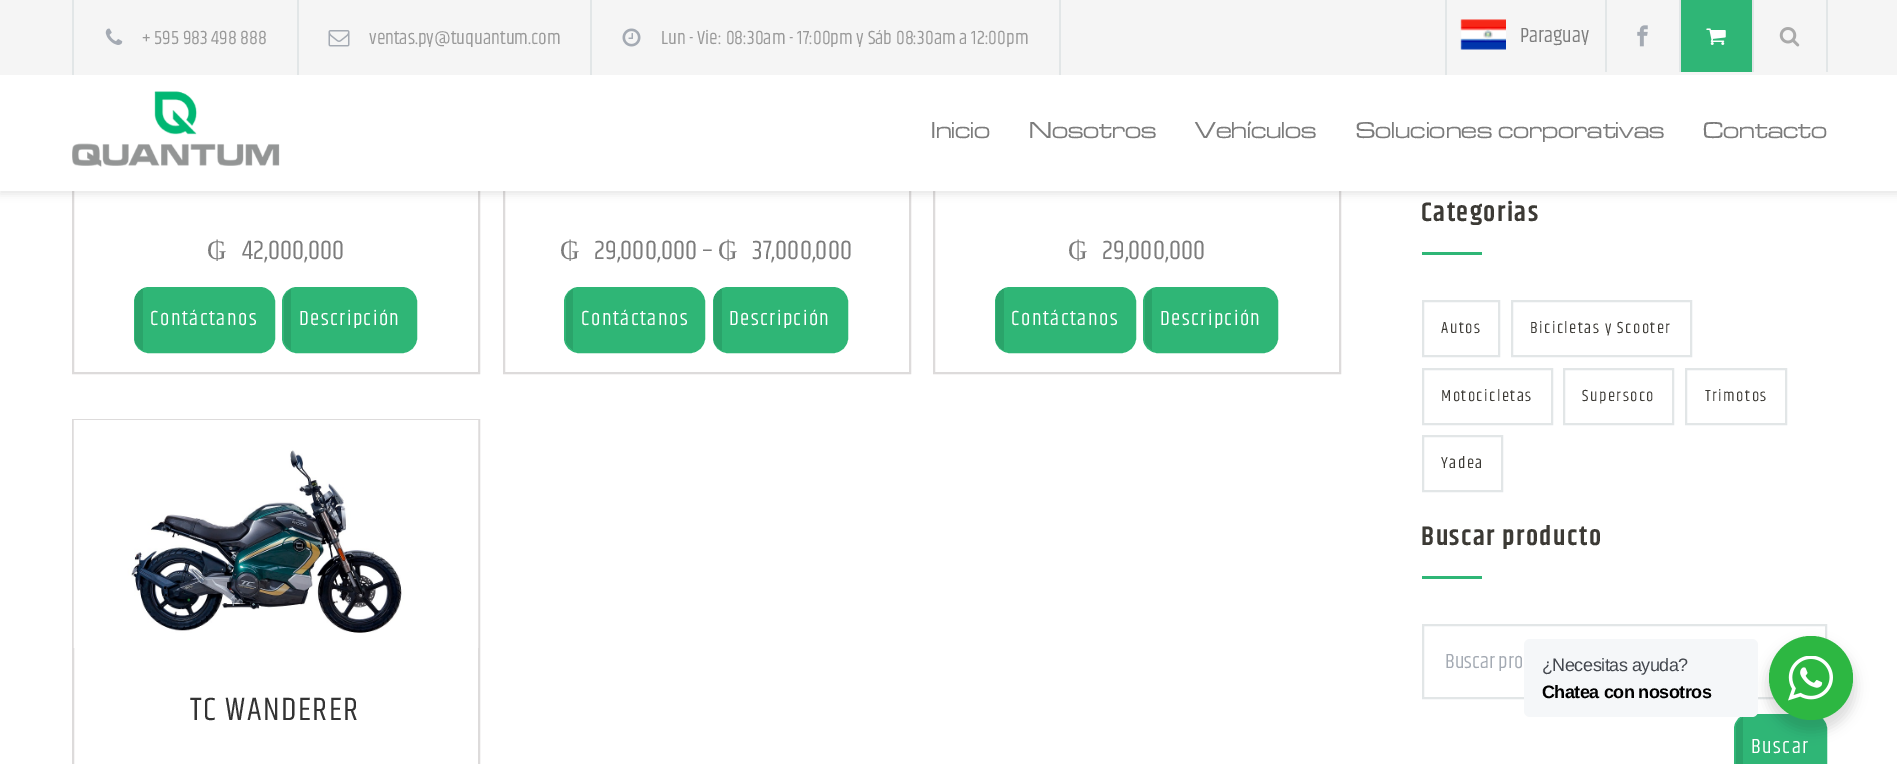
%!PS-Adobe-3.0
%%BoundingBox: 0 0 1897 764
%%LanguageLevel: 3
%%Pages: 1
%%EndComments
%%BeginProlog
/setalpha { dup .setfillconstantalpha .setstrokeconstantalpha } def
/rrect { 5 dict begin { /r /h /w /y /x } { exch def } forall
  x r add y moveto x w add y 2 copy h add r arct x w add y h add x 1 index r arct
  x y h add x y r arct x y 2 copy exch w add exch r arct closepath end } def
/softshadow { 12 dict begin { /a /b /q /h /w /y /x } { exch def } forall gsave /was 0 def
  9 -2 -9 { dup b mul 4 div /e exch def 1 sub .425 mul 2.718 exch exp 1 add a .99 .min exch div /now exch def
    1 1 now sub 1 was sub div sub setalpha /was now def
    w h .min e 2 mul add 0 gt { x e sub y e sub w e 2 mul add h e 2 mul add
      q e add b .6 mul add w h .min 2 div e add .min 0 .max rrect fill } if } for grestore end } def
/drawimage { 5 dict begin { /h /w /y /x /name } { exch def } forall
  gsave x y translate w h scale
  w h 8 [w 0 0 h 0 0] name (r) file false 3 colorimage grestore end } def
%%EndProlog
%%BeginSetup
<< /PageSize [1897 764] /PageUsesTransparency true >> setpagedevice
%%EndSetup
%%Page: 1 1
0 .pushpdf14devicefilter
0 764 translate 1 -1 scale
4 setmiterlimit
1 setgray
0 0 1897 764 rectfill
0.867 0.859 0.859 setrgbcolor
2 setlinewidth
73 -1 406 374 rectstroke
504 -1 406 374 rectstroke
934 -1 406 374 rectstroke
0 setgray
0 71 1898 123 0 4 0.1 softshadow
0.961 setgray
0 0 1897 75 rectfill
0.886 0.902 0.906 setrgbcolor
297 0 2 75 rectfill
72 0 2 75 rectfill
(images/1.raw) 105 28 18 17 drawimage
590 0 2 75 rectfill
(images/2.raw) 328 30 22 17 drawimage
1059 0 2 75 rectfill
(images/3.raw) 622 28 19 19 drawimage
1445 0 2 75 rectfill
(images/4.raw) 1460 19 46 31 drawimage
1679 0 2 72 rectfill
1605 0 2 72 rectfill
(images/5.raw) 1637 25 11 22 drawimage
0.184 0.714 0.463 setrgbcolor
1681 0 71 72 rectfill
0.886 0.902 0.906 setrgbcolor
1752 0 2 72 rectfill
(images/6.raw) 1706 28 20 17 drawimage
1826 0 2 72 rectfill
(images/7.raw) 1779 27 21 20 drawimage
1 setgray
0 75 1897 116 rectfill
(images/8.raw) 72 91 208 76 drawimage
0.184 0.714 0.463 setrgbcolor
135 288 139 64 14 rrect gsave fill grestore
stroke
gsave
135 288 138 63 14 rrect clip newpath
0.165 0.643 0.416 setrgbcolor
135 288 8 63 rectfill
grestore
283 288 133 64 14 rrect gsave fill grestore
stroke
gsave
284 288 132 63 14 rrect clip newpath
0.165 0.643 0.416 setrgbcolor
284 288 7 63 rectfill
grestore
565 288 139 64 14 rrect gsave fill grestore
stroke
gsave
566 288 138 63 14 rrect clip newpath
0.165 0.643 0.416 setrgbcolor
566 288 7 63 rectfill
grestore
714 288 133 64 14 rrect gsave fill grestore
stroke
gsave
714 288 132 63 14 rrect clip newpath
0.165 0.643 0.416 setrgbcolor
714 288 8 63 rectfill
grestore
996 288 139 64 14 rrect gsave fill grestore
stroke
gsave
996 288 138 63 14 rrect clip newpath
0.165 0.643 0.416 setrgbcolor
996 288 8 63 rectfill
grestore
1144 288 133 64 14 rrect gsave fill grestore
stroke
gsave
1145 288 132 63 14 rrect clip newpath
0.165 0.643 0.416 setrgbcolor
1145 288 7 63 rectfill
grestore
0.867 0.859 0.859 setrgbcolor
73 420 406 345 rectstroke
(images/9.raw) 73 420 406 228 drawimage
0.184 0.714 0.463 setrgbcolor
1422 252 60 3 rectfill
0.886 0.902 0.906 setrgbcolor
1423 301 76 55 rectstroke
1512 301 179 55 rectstroke
1423 369 129 55 rectstroke
1564 369 109 55 rectstroke
1686 369 100 55 rectstroke
1423 436 79 55 rectstroke
0.184 0.714 0.463 setrgbcolor
1422 576 60 3 rectfill
0.886 0.902 0.906 setrgbcolor
1423 625 403 73 rectstroke
0.184 0.714 0.463 setrgbcolor
1735 715 91 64 14 rrect gsave fill grestore
stroke
gsave
1736 716 90 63 14 rrect clip newpath
0.165 0.643 0.416 setrgbcolor
1736 716 7 48 rectfill
grestore
0 setgray
1766 642 90 90 45 6 0.14 softshadow
0.961 0.969 0.976 setrgbcolor
1524 639 234 78 6 rrect fill
0.176 0.718 0.259 setrgbcolor
newpath 1811 678 42 0 360 arc closepath fill
(images/10.raw) 1788 656 45 45 drawimage
/Khand-Regular [19.5 0 0 -19.5 0 0] selectfont
0.6 setgray
142 44 moveto (+ 595 983 498 888) show
369 44 moveto (ventas.py@tuquantum.com) show
661 44 moveto (Lun - Vie: 08:30am - 17:00pm y Sáb 08:30am a 12:00pm) show
/Khand-Regular [21 0 0 -21 0 0] selectfont
0.486 setgray
1520 42 moveto (Paraguay) show
/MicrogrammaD-Medium [24 0 0 -24 0 0] selectfont
931 138 moveto (Inicio) show
1029 138 moveto (Nosotros) show
1195 138 moveto (Vehículos) show
1356 138 moveto (Soluciones corporativas) show
1703 138 moveto (Contacto) show
/LiberationSerif-Regular [27 0 0 -27 0 0] selectfont
207 259 moveto (₲) show
/Khand-Regular [27 0 0 -27 0 0] selectfont
242 259 moveto (42,000,000) show
/Khand-Regular [21 0 0 -21 0 0] selectfont
1 setgray
150 325 moveto 1.5 0 (Contáctanos) ashow
299 325 moveto 1.5 0 (Descripción) ashow
/LiberationSerif-Regular [27 0 0 -27 0 0] selectfont
0.486 setgray
560 259 moveto (₲) show
/Khand-Regular [27 0 0 -27 0 0] selectfont
594 259 moveto (29,000,000 –) show
/LiberationSerif-Regular [27 0 0 -27 0 0] selectfont
718 259 moveto (₲) show
/Khand-Regular [27 0 0 -27 0 0] selectfont
752 259 moveto (37,000,000) show
/Khand-Regular [21 0 0 -21 0 0] selectfont
1 setgray
581 325 moveto 1.5 0 (Contáctanos) ashow
729 325 moveto 1.5 0 (Descripción) ashow
/LiberationSerif-Regular [27 0 0 -27 0 0] selectfont
0.486 setgray
1068 259 moveto (₲) show
/Khand-Regular [27 0 0 -27 0 0] selectfont
1102 259 moveto (29,000,000) show
/Khand-Regular [21 0 0 -21 0 0] selectfont
1 setgray
1011 325 moveto 1.5 0 (Contáctanos) ashow
1160 325 moveto 1.5 0 (Descripción) ashow
/Khand-Regular [33 0 0 -33 0 0] selectfont
0.2 setgray
190 720 moveto 1.5 0 (TC WANDERER) ashow
/Khand-SemiBold [27 0 0 -27 0 0] selectfont
0.235 0.227 0.208 setrgbcolor
1421 221 moveto 1.5 0 (Categorias) ashow
/Khand-Regular [16.5 0 0 -16.5 0 0] selectfont
1441 333 moveto 1.5 0 (Autos) ashow
1530 333 moveto 1.5 0 (Bicicletas y Scooter) ashow
1441 401 moveto 1.5 0 (Motocicletas) ashow
1582 401 moveto 1.5 0 (Supersoco) ashow
1705 401 moveto 1.5 0 (Trimotos) ashow
1441 468 moveto 1.5 0 (Yadea) ashow
/Khand-SemiBold [27 0 0 -27 0 0] selectfont
1421 545 moveto 1.5 0 (Buscar producto) ashow
/Khand-Regular [21 0 0 -21 0 0] selectfont
0.643 0.667 0.702 setrgbcolor
1445 668 moveto (Buscar pro) show
1 setgray
1751 753 moveto 1.5 0 (Buscar) ashow
/LiberationSans-Regular [18 0 0 -18 0 0] selectfont
0.263 0.278 0.306 setrgbcolor
1542 671 moveto -0.5 0 (¿Necesitas ayuda?) ashow
/LiberationSans-Bold [18 0 0 -18 0 0] selectfont
0 setgray
1542 698 moveto -0.5 0 (Chatea con nosotros) ashow
.poppdf14devicefilter showpage
%%EOF
